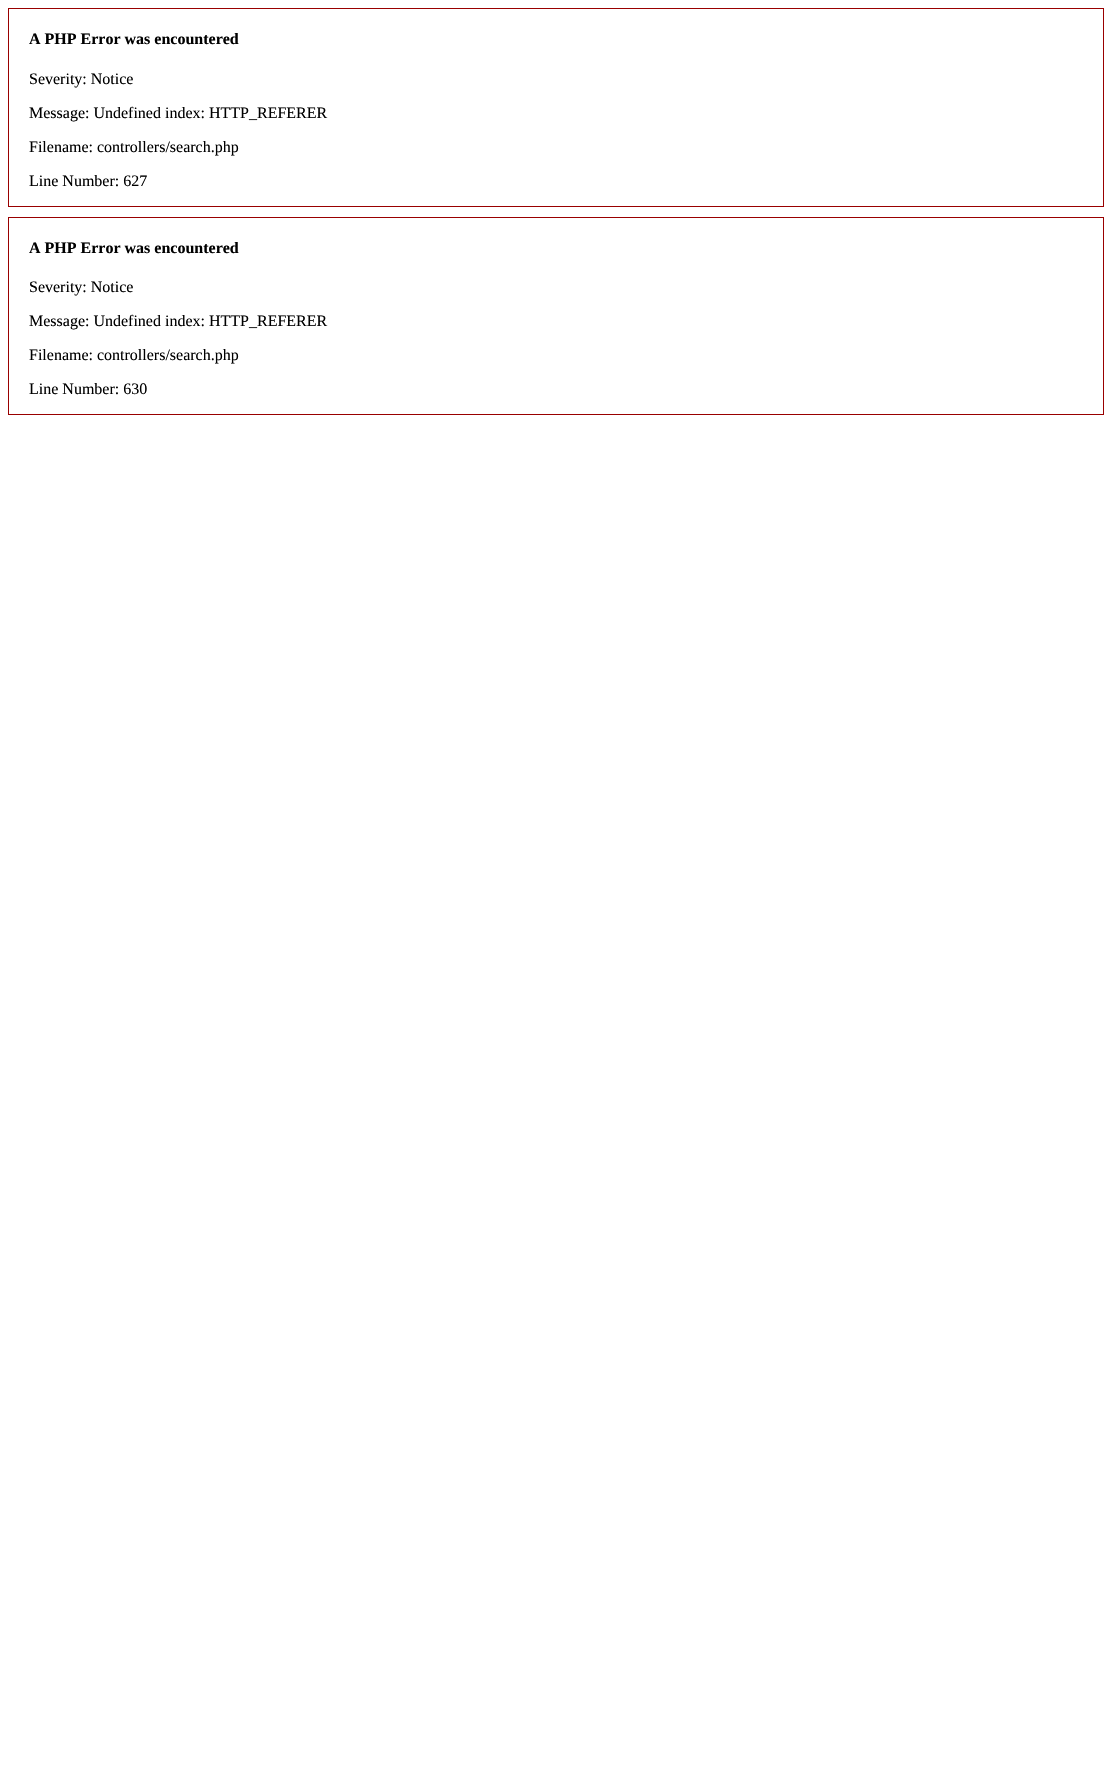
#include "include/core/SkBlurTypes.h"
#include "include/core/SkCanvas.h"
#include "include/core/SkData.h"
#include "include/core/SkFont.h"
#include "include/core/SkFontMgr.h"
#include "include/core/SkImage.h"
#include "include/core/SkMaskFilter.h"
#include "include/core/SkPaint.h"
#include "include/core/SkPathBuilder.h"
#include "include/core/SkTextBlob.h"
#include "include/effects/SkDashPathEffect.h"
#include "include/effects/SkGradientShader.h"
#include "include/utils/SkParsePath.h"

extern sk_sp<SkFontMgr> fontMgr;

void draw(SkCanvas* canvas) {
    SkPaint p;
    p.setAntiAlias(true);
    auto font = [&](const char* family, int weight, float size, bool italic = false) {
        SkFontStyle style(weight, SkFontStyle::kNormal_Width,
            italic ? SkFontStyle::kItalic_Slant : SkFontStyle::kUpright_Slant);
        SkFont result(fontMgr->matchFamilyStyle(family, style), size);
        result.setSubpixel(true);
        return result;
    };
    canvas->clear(0xFFFFFFFF);
    p.setStyle(SkPaint::kStroke_Style);
    p.setStrokeWidth(1);
    p.setColor(0xFF990000);
    canvas->drawRect(SkRect::MakeLTRB(8.5f, 8.5f, 1103.5f, 206.5f), p);
    auto font1 = font("Liberation Serif", 700, 16);
    p.setStyle(SkPaint::kFill_Style);
    p.setColor(0xFF000000);
    canvas->drawString("A PHP Error was encountered", 29, 44, font1, p);
    auto font2 = font("Liberation Serif", 400, 16);
    {
        const struct { const char* s; float x, y; } items[] = {
            {"Severity: Notice", 29, 84},
            {"Message: Undefined index: HTTP_REFERER", 29, 118},
            {"Filename: controllers/search.php", 29, 152},
            {"Line Number: 627", 29, 186},
        };
        for (auto [s, x, y] : items) {
            canvas->drawString(s, x, y, font2, p);
        }
    }
    p.setStyle(SkPaint::kStroke_Style);
    p.setColor(0xFF990000);
    canvas->drawRect(SkRect::MakeLTRB(8.5f, 217.5f, 1103.5f, 414.5f), p);
    p.setStyle(SkPaint::kFill_Style);
    p.setColor(0xFF000000);
    canvas->drawString("A PHP Error was encountered", 29, 253, font1, p);
    {
        const struct { const char* s; float x, y; } items[] = {
            {"Severity: Notice", 29, 292},
            {"Message: Undefined index: HTTP_REFERER", 29, 326},
            {"Filename: controllers/search.php", 29, 360},
            {"Line Number: 630", 29, 394},
        };
        for (auto [s, x, y] : items) {
            canvas->drawString(s, x, y, font2, p);
        }
    }
}
